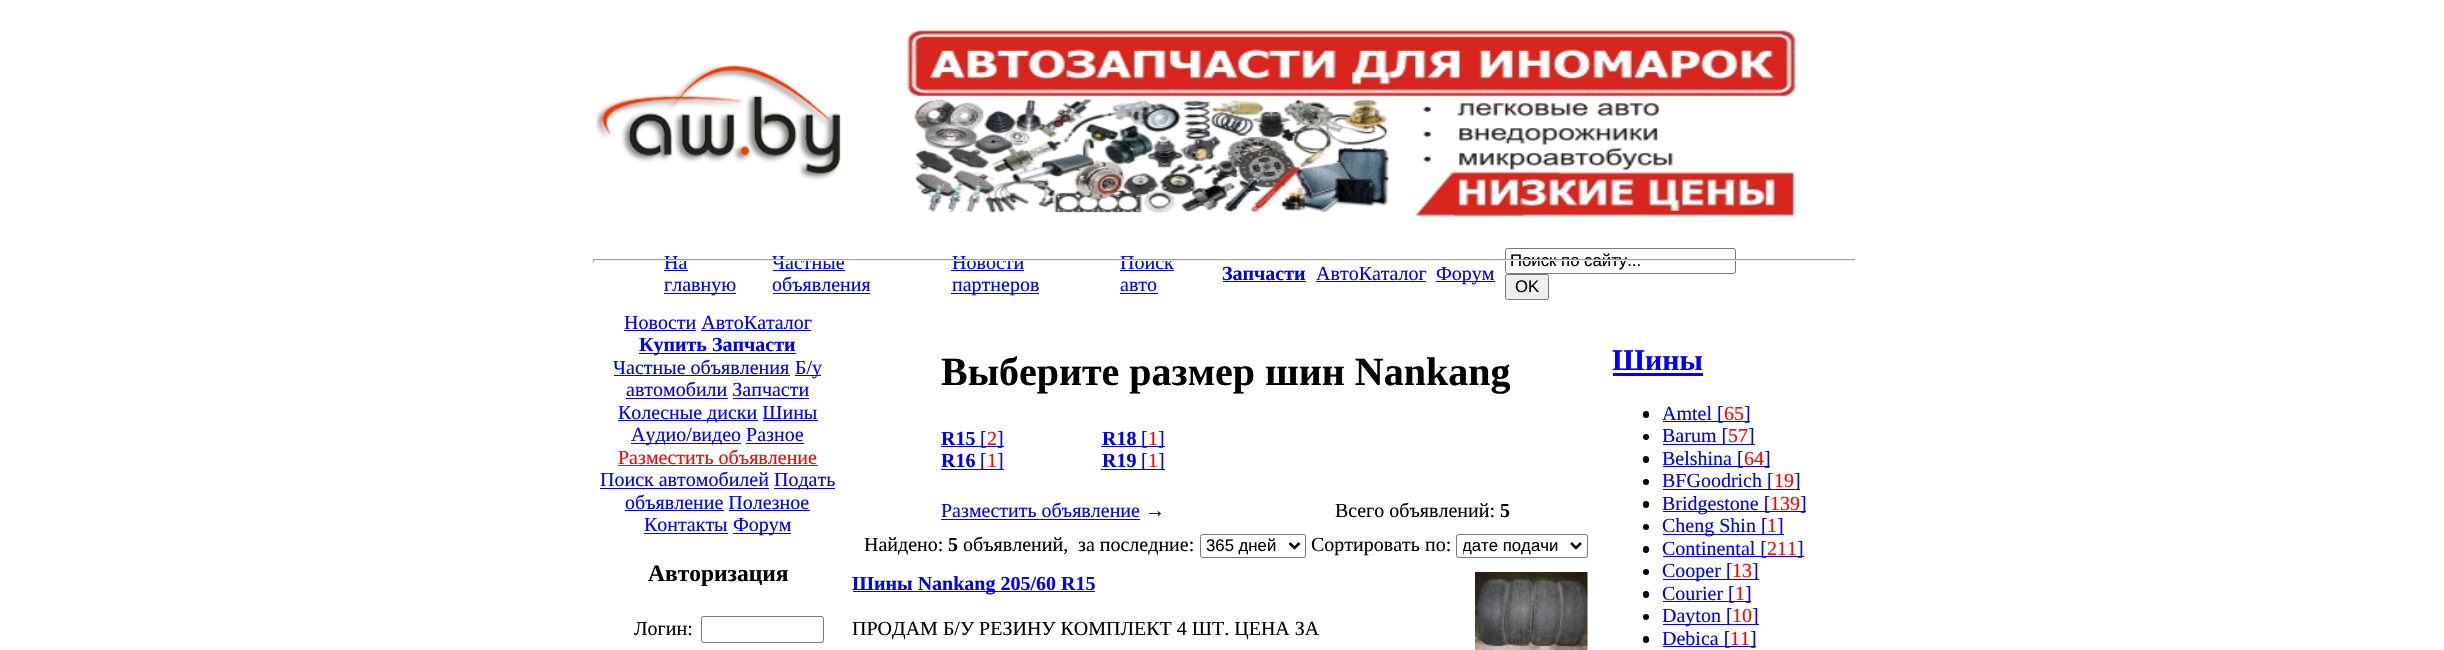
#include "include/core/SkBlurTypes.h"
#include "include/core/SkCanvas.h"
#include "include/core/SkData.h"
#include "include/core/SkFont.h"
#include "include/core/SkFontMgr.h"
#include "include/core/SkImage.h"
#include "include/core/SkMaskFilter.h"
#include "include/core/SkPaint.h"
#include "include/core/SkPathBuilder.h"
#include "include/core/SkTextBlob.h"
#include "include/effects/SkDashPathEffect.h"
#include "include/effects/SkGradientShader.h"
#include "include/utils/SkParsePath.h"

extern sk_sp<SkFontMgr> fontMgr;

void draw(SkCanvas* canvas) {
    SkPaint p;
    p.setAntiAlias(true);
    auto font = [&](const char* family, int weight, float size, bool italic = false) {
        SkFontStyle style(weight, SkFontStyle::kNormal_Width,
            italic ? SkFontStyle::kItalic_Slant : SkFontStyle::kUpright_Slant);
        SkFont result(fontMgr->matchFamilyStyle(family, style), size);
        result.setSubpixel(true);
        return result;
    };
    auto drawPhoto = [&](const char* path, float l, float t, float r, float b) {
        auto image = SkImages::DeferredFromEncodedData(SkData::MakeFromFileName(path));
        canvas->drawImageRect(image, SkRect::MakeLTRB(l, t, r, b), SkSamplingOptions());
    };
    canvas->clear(0xFFFFFFFF);
    drawPhoto("media/1.png", 596, 65, 841, 180);
    drawPhoto("media/2.png", 906, 29, 1797, 217);
    auto font1 = font("Liberation Serif", 400, 20);
    p.setColor(0xFF0000EE);
    canvas->drawString("На", 664, 269, font1, p);
    canvas->drawRect(SkRect::MakeLTRB(664, 270, 688, 271), p);
    canvas->drawRect(SkRect::MakeLTRB(664, 293, 736, 294), p);
    canvas->drawString("главную", 664, 291, font1, p);
    canvas->drawString("Частные", 772, 269, font1, p);
    canvas->drawRect(SkRect::MakeLTRB(773, 270, 845, 271), p);
    canvas->drawString("объявления", 772, 291, font1, p);
    canvas->drawRect(SkRect::MakeLTRB(773, 293, 870, 294), p);
    canvas->drawString("Новости", 952, 269, font1, p);
    canvas->drawRect(SkRect::MakeLTRB(951, 270, 1024, 271), p);
    canvas->drawRect(SkRect::MakeLTRB(951, 293, 1039, 294), p);
    canvas->drawString("партнеров", 952, 291, font1, p);
    canvas->drawString("Поиск", 1120, 269, font1, p);
    canvas->drawRect(SkRect::MakeLTRB(1120, 270, 1174, 271), p);
    canvas->drawString("авто", 1120, 291, font1, p);
    canvas->drawRect(SkRect::MakeLTRB(1120, 293, 1158, 294), p);
    auto font2 = font("Liberation Serif", 700, 20);
    canvas->drawString("Запчасти", 1222, 280, font2, p);
    canvas->drawRect(SkRect::MakeLTRB(1223, 281, 1306, 282), p);
    canvas->drawString("АвтоКаталог", 1316, 280, font1, p);
    canvas->drawRect(SkRect::MakeLTRB(1316, 281, 1426, 282), p);
    canvas->drawRect(SkRect::MakeLTRB(1436, 281, 1495, 282), p);
    canvas->drawString("Форум", 1436, 280, font1, p);
    p.setStyle(SkPaint::kStroke_Style);
    p.setStrokeWidth(1);
    p.setColor(0xFF767676);
    canvas->drawRoundRect(SkRect::MakeLTRB(1505.5f, 248.5f, 1735.5f, 273.5f), 2, 2, p);
    auto font3 = font("Liberation Sans", 400, 16.75f);
    p.setStyle(SkPaint::kFill_Style);
    p.setColor(0xFF000000);
    canvas->drawString("Поиск по сайту...", 1510, 266, font3, p);
    p.setColor(0xFFEFEFEF);
    canvas->drawRoundRect(SkRect::MakeLTRB(1505.5f, 274.5f, 1548.5f, 299.5f), 2, 2, p);
    p.setStyle(SkPaint::kStroke_Style);
    p.setColor(0xFF767676);
    canvas->drawRoundRect(SkRect::MakeLTRB(1505.5f, 274.5f, 1548.5f, 299.5f), 2, 2, p);
    p.setStyle(SkPaint::kFill_Style);
    p.setColor(0xFF000000);
    canvas->drawString("OK", 1515, 292, font3, p);
    {
        const struct { float l, t, r, b; SkColor color; } items[] = {
            {593, 259, 1856, 260, 0xFF9F9F9F},
            {1855, 259, 1856, 262, 0xFFEEEEEE},
            {593, 260, 1856, 261, 0xFFEEEEEE},
            {593, 259, 594, 262, 0xFF9F9F9F},
        };
        for (auto [l, t, r, b, color] : items) {
            p.setColor(color);
            canvas->drawRect(SkRect::MakeLTRB(l, t, r, b), p);
        }
    }
    p.setColor(0xFF0000EE);
    canvas->drawString("Новости АвтоКаталог", 624, 329, font1, p);
    {
        const struct { float l, t, r, b; SkColor color; } items[] = {
            {624, 330, 696, 331, 0xFF0000EE},
            {701, 330, 811, 331, 0xFF0000EE},
            {639, 353, 796, 354, 0xFF0000EE},
        };
        for (auto [l, t, r, b, color] : items) {
            p.setColor(color);
            canvas->drawRect(SkRect::MakeLTRB(l, t, r, b), p);
        }
    }
    canvas->drawString("Купить Запчасти", 639, 351, font2, p);
    canvas->drawString("Частные объявления", 613, 374, font1, p);
    canvas->drawRect(SkRect::MakeLTRB(614, 375, 790, 376), p);
    canvas->drawRect(SkRect::MakeLTRB(795, 375, 821, 376), p);
    canvas->drawString("Б/у", 795, 374, font1, p);
    canvas->drawString("автомобили Запчасти", 626, 396, font1, p);
    {
        const struct { float l, t, r, b; SkColor color; } items[] = {
            {626, 398, 728, 399, 0xFF0000EE},
            {733, 398, 809, 399, 0xFF0000EE},
            {618, 420, 758, 421, 0xFF0000EE},
        };
        for (auto [l, t, r, b, color] : items) {
            p.setColor(color);
            canvas->drawRect(SkRect::MakeLTRB(l, t, r, b), p);
        }
    }
    canvas->drawString("Колесные диски Шины", 618, 419, font1, p);
    canvas->drawRect(SkRect::MakeLTRB(763, 420, 818, 421), p);
    canvas->drawRect(SkRect::MakeLTRB(631, 443, 741, 444), p);
    canvas->drawString("Аудио/видео Разное", 631, 441, font1, p);
    canvas->drawRect(SkRect::MakeLTRB(746, 443, 804, 444), p);
    p.setColor(0xFFFF0000);
    canvas->drawString("Разместить объявление", 618, 464, font1, p);
    canvas->drawRect(SkRect::MakeLTRB(618, 465, 818, 466), p);
    p.setColor(0xFF0000EE);
    canvas->drawString("Поиск автомобилей", 600, 486, font1, p);
    canvas->drawRect(SkRect::MakeLTRB(600, 488, 769, 489), p);
    canvas->drawRect(SkRect::MakeLTRB(774, 488, 835, 489), p);
    canvas->drawString("Подать", 774, 486, font1, p);
    canvas->drawString("объявление Полезное", 625, 509, font1, p);
    canvas->drawRect(SkRect::MakeLTRB(625, 510, 724, 511), p);
    canvas->drawRect(SkRect::MakeLTRB(729, 510, 810, 511), p);
    canvas->drawString("Контакты", 644, 531, font1, p);
    canvas->drawRect(SkRect::MakeLTRB(644, 533, 728, 534), p);
    canvas->drawRect(SkRect::MakeLTRB(733, 533, 791, 534), p);
    canvas->drawString("Форум", 733, 531, font1, p);
    auto font4 = font("Liberation Serif", 700, 23.5f);
    p.setColor(0xFF000000);
    canvas->drawString("Авторизация", 648, 581, font4, p);
    canvas->drawString("Логин:", 634, 635, font1, p);
    p.setStyle(SkPaint::kStroke_Style);
    p.setColor(0xFF767676);
    canvas->drawRoundRect(SkRect::MakeLTRB(701.5f, 616.5f, 823.5f, 642.5f), 2, 2, p);
    auto font5 = font("Liberation Serif", 700, 40);
    p.setStyle(SkPaint::kFill_Style);
    p.setColor(0xFF000000);
    canvas->drawString("Выберите размер шин Nankang", 941, 385, font5, p);
    p.setColor(0xFF0000EE);
    canvas->drawString("R15", 941, 445, font2, p);
    canvas->drawRect(SkRect::MakeLTRB(941, 446, 1004, 447), p);
    canvas->drawString("[", 980, 445, font1, p);
    p.setColor(0xFFFF0000);
    canvas->drawString("2", 987, 445, font1, p);
    p.setColor(0xFF0000EE);
    canvas->drawString("]", 997, 445, font1, p);
    canvas->drawString("R16", 941, 467, font2, p);
    canvas->drawRect(SkRect::MakeLTRB(941, 469, 1004, 470), p);
    canvas->drawString("[", 980, 467, font1, p);
    p.setColor(0xFFFF0000);
    canvas->drawString("1", 987, 467, font1, p);
    p.setColor(0xFF0000EE);
    canvas->drawString("]", 997, 467, font1, p);
    canvas->drawString("R18", 1102, 445, font2, p);
    canvas->drawRect(SkRect::MakeLTRB(1101, 446, 1165, 447), p);
    canvas->drawString("[", 1141, 445, font1, p);
    p.setColor(0xFFFF0000);
    canvas->drawString("1", 1148, 445, font1, p);
    p.setColor(0xFF0000EE);
    canvas->drawString("]", 1158, 445, font1, p);
    canvas->drawString("R19", 1102, 467, font2, p);
    canvas->drawRect(SkRect::MakeLTRB(1101, 469, 1165, 470), p);
    canvas->drawString("[", 1141, 467, font1, p);
    p.setColor(0xFFFF0000);
    canvas->drawString("1", 1148, 467, font1, p);
    p.setColor(0xFF0000EE);
    canvas->drawString("]", 1158, 467, font1, p);
    canvas->drawString("Разместить объявление", 941, 517, font1, p);
    canvas->drawRect(SkRect::MakeLTRB(941, 519, 1140, 520), p);
    p.setColor(0xFF000000);
    canvas->drawString("→", 1145, 517, font1, p);
    canvas->drawString("Всего объявлений:", 1335, 517, font1, p);
    canvas->drawString("5", 1500, 517, font2, p);
    canvas->drawString("Найдено:", 864, 551, font1, p);
    canvas->drawString("5", 948, 551, font2, p);
    canvas->drawString("объявлений,", 963, 551, font1, p);
    canvas->drawString("за последние:", 1078, 551, font1, p);
    p.setStyle(SkPaint::kStroke_Style);
    p.setColor(0xFF767676);
    canvas->drawRoundRect(SkRect::MakeLTRB(1200.5f, 534.5f, 1305.5f, 557.5f), 2, 2, p);
    p.setStrokeWidth(2.5f);
    p.setColor(0xFF000000);
    canvas->drawPath(SkPathBuilder().moveTo(1289.5f, 543).lineTo(1294.5f, 548).lineTo(1299.5f, 543).detach(), p);
    p.setStyle(SkPaint::kFill_Style);
    canvas->drawString("365 дней", 1206, 551, font3, p);
    canvas->drawString("Сортировать по:", 1311, 551, font1, p);
    p.setStyle(SkPaint::kStroke_Style);
    p.setStrokeWidth(1);
    p.setColor(0xFF767676);
    canvas->drawRoundRect(SkRect::MakeLTRB(1456.5f, 534.5f, 1587.5f, 557.5f), 2, 2, p);
    p.setStrokeWidth(2.5f);
    p.setColor(0xFF000000);
    canvas->drawPath(SkPathBuilder().moveTo(1571, 543).lineTo(1576, 548).lineTo(1581, 543).detach(), p);
    canvas->save();
    canvas->clipRect(SkRect::MakeLTRB(1463, 535, 1566, 556));
    p.setStyle(SkPaint::kFill_Style);
    canvas->drawString("дате подачи", 1462, 551, font3, p);
    canvas->restore();
    p.setColor(0xFF0000EE);
    canvas->drawRect(SkRect::MakeLTRB(853, 591, 1095, 592), p);
    canvas->drawString("Шины Nankang 205/60 R15", 852, 590, font2, p);
    p.setColor(0xFF000000);
    canvas->drawString("ПРОДАМ Б/У РЕЗИНУ КОМПЛЕКТ 4 ШТ. ЦЕНА ЗА", 852, 635, font1, p);
    drawPhoto("media/3.png", 1475, 572, 1588, 650);
    auto font6 = font("Liberation Serif", 700, 30);
    p.setColor(0xFF0000EE);
    canvas->drawString("Шины", 1612, 370, font6, p);
    canvas->drawRect(SkRect::MakeLTRB(1613, 373, 1703, 376), p);
    p.setColor(0xFF000000);
    canvas->drawRoundRect(SkRect::MakeLTRB(1643, 411, 1649, 418), 3, 3, p);
    p.setColor(0xFF0000EE);
    canvas->drawRect(SkRect::MakeLTRB(1663, 421, 1750, 422), p);
    canvas->drawString("Amtel [", 1662, 420, font1, p);
    p.setColor(0xFFFF0000);
    canvas->drawString("65", 1724, 420, font1, p);
    p.setColor(0xFF0000EE);
    canvas->drawString("]", 1744, 420, font1, p);
    p.setColor(0xFF000000);
    canvas->drawCircle(1646, 437, 3, p);
    p.setColor(0xFF0000EE);
    canvas->drawRect(SkRect::MakeLTRB(1663, 444, 1755, 445), p);
    canvas->drawString("Barum [", 1662, 442, font1, p);
    p.setColor(0xFFFF0000);
    canvas->drawString("57", 1728, 442, font1, p);
    p.setColor(0xFF0000EE);
    canvas->drawString("]", 1748, 442, font1, p);
    p.setColor(0xFF000000);
    canvas->drawRoundRect(SkRect::MakeLTRB(1643, 456, 1649, 463), 3, 3, p);
    p.setColor(0xFF0000EE);
    canvas->drawRect(SkRect::MakeLTRB(1663, 466, 1770, 467), p);
    canvas->drawString("Belshina [", 1662, 465, font1, p);
    p.setColor(0xFFFF0000);
    canvas->drawString("64", 1744, 465, font1, p);
    p.setColor(0xFF0000EE);
    canvas->drawString("]", 1764, 465, font1, p);
    p.setColor(0xFF000000);
    canvas->drawCircle(1646, 482, 3, p);
    p.setColor(0xFF0000EE);
    canvas->drawRect(SkRect::MakeLTRB(1663, 489, 1800, 490), p);
    canvas->drawString("BFGoodrich [", 1662, 487, font1, p);
    p.setColor(0xFFFF0000);
    canvas->drawString("19", 1774, 487, font1, p);
    p.setColor(0xFF0000EE);
    canvas->drawString("]", 1794, 487, font1, p);
    p.setColor(0xFF000000);
    canvas->drawRoundRect(SkRect::MakeLTRB(1643, 501, 1649, 508), 3, 3, p);
    p.setColor(0xFF0000EE);
    canvas->drawRect(SkRect::MakeLTRB(1663, 511, 1806, 512), p);
    canvas->drawString("Bridgestone [", 1662, 510, font1, p);
    p.setColor(0xFFFF0000);
    canvas->drawString("139", 1770, 510, font1, p);
    p.setColor(0xFF0000EE);
    canvas->drawString("]", 1800, 510, font1, p);
    p.setColor(0xFF000000);
    canvas->drawCircle(1646, 527, 3, p);
    p.setColor(0xFF0000EE);
    canvas->drawRect(SkRect::MakeLTRB(1663, 534, 1784, 535), p);
    canvas->drawString("Cheng Shin [", 1662, 532, font1, p);
    p.setColor(0xFFFF0000);
    canvas->drawString("1", 1767, 532, font1, p);
    p.setColor(0xFF0000EE);
    canvas->drawString("]", 1777, 532, font1, p);
    p.setColor(0xFF000000);
    canvas->drawRoundRect(SkRect::MakeLTRB(1643, 546, 1649, 553), 3, 3, p);
    p.setColor(0xFF0000EE);
    canvas->drawRect(SkRect::MakeLTRB(1663, 556, 1766, 557), p);
    canvas->drawString("Continental [", 1662, 555, font1, p);
    canvas->drawRect(SkRect::MakeLTRB(1766, 556, 1804, 557), p);
    p.setColor(0xFFFF0000);
    canvas->drawString("211", 1767, 555, font1, p);
    p.setColor(0xFF0000EE);
    canvas->drawString("]", 1797, 555, font1, p);
    p.setColor(0xFF000000);
    canvas->drawCircle(1646, 572, 3, p);
    p.setColor(0xFF0000EE);
    canvas->drawRect(SkRect::MakeLTRB(1663, 579, 1759, 580), p);
    canvas->drawString("Cooper [", 1662, 577, font1, p);
    p.setColor(0xFFFF0000);
    canvas->drawString("13", 1732, 577, font1, p);
    p.setColor(0xFF0000EE);
    canvas->drawString("]", 1752, 577, font1, p);
    p.setColor(0xFF000000);
    canvas->drawRoundRect(SkRect::MakeLTRB(1643, 591, 1649, 598), 3, 3, p);
    p.setColor(0xFF0000EE);
    canvas->drawRect(SkRect::MakeLTRB(1663, 601, 1751, 602), p);
    canvas->drawString("Courier [", 1662, 600, font1, p);
    p.setColor(0xFFFF0000);
    canvas->drawString("1", 1735, 600, font1, p);
    p.setColor(0xFF0000EE);
    canvas->drawString("]", 1745, 600, font1, p);
    p.setColor(0xFF000000);
    canvas->drawCircle(1646, 617, 3, p);
    p.setColor(0xFF0000EE);
    canvas->drawRect(SkRect::MakeLTRB(1663, 624, 1759, 625), p);
    canvas->drawString("Dayton [", 1662, 622, font1, p);
    p.setColor(0xFFFF0000);
    canvas->drawString("10", 1732, 622, font1, p);
    p.setColor(0xFF0000EE);
    canvas->drawString("]", 1752, 622, font1, p);
    p.setColor(0xFF000000);
    canvas->drawRoundRect(SkRect::MakeLTRB(1643, 636, 1649, 643), 3, 3, p);
    p.setColor(0xFF0000EE);
    canvas->drawRect(SkRect::MakeLTRB(1663, 646, 1756, 647), p);
    canvas->drawString("Debica [", 1662, 645, font1, p);
    p.setColor(0xFFFF0000);
    canvas->drawString("11", 1730, 645, font1, p);
    p.setColor(0xFF0000EE);
    canvas->drawString("]", 1750, 645, font1, p);
}
